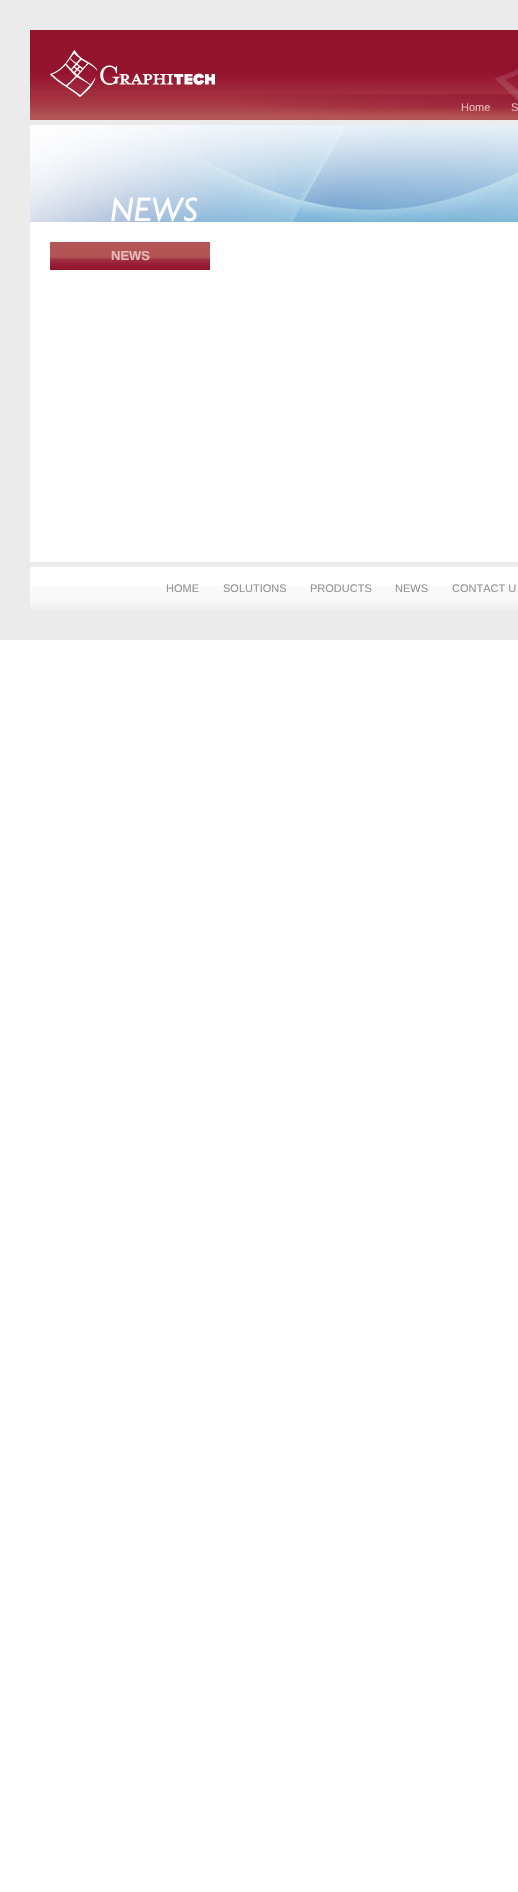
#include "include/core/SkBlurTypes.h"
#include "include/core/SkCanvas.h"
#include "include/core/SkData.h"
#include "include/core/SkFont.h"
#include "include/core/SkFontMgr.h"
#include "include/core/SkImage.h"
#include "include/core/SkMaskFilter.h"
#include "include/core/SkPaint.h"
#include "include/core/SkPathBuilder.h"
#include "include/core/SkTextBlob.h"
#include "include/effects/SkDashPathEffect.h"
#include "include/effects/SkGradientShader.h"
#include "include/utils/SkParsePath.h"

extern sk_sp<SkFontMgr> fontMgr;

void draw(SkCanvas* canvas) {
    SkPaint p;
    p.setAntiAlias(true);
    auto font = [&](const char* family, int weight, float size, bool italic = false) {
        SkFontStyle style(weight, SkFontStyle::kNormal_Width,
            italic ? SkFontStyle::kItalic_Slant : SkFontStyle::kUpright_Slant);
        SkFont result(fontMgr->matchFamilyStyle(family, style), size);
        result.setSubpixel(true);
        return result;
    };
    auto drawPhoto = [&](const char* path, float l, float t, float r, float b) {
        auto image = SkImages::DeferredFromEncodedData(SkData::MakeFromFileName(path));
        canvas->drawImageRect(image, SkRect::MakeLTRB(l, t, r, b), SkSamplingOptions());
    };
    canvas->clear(0xFFFFFFFF);
    p.setColor(0xFFEBEBEB);
    canvas->drawRect(SkRect::MakeLTRB(0, 0, 518, 640), p);
    drawPhoto("media/1.png", 30, 30, 518, 120);
    drawPhoto("media/2.png", 50, 50, 215, 97);
    auto font1 = font("Liberation Sans", 400, 11);
    p.setColor(0xFFE5B9B9);
    canvas->drawString("Home", 461, 111, font1, p);
    canvas->drawString("S", 511, 111, font1, p);
    drawPhoto("media/3.png", 30, 125, 518, 222);
    auto font2 = font("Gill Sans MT", 400, 34, true);
    p.setColor(0xFFFFFFFF);
    canvas->drawString("NEWS", 110, 221, font2, p);
    canvas->drawRect(SkRect::MakeLTRB(30, 222, 518, 562), p);
    drawPhoto("media/4.png", 50, 242, 210, 270);
    auto font3 = font("Liberation Sans", 700, 13);
    p.setColor(0xFFE5B9B9);
    canvas->drawString("NEWS", 111, 260, font3, p);
    p.setColor(0xFFFFFFFF);
    canvas->drawRect(SkRect::MakeLTRB(30, 567, 518, 586), p);
    drawPhoto("media/5.png", 30, 586, 518, 610);
    p.setColor(0xFF929292);
    {
        const struct { const char* s; float x, y; } items[] = {
            {"HOME", 166, 592},
            {"SOLUTIONS", 223, 592},
            {"PRODUCTS", 310, 592},
            {"NEWS", 395, 592},
            {"CONTACT U", 452, 592},
        };
        for (auto [s, x, y] : items) {
            canvas->drawString(s, x, y, font1, p);
        }
    }
}
